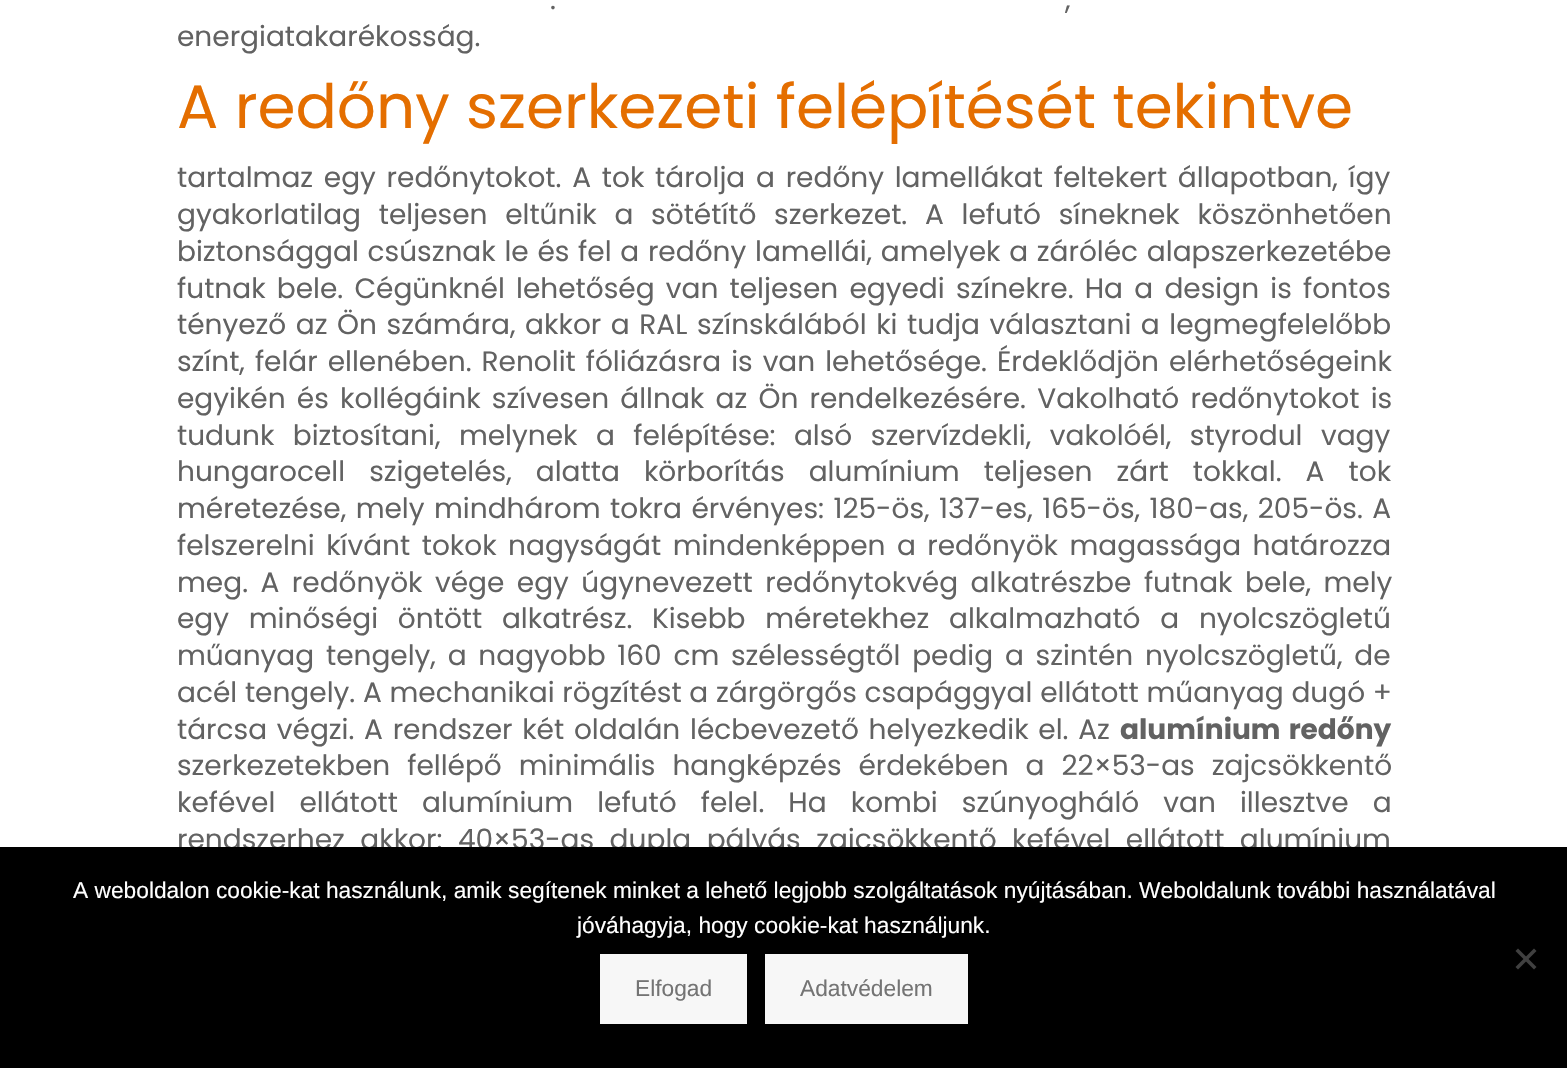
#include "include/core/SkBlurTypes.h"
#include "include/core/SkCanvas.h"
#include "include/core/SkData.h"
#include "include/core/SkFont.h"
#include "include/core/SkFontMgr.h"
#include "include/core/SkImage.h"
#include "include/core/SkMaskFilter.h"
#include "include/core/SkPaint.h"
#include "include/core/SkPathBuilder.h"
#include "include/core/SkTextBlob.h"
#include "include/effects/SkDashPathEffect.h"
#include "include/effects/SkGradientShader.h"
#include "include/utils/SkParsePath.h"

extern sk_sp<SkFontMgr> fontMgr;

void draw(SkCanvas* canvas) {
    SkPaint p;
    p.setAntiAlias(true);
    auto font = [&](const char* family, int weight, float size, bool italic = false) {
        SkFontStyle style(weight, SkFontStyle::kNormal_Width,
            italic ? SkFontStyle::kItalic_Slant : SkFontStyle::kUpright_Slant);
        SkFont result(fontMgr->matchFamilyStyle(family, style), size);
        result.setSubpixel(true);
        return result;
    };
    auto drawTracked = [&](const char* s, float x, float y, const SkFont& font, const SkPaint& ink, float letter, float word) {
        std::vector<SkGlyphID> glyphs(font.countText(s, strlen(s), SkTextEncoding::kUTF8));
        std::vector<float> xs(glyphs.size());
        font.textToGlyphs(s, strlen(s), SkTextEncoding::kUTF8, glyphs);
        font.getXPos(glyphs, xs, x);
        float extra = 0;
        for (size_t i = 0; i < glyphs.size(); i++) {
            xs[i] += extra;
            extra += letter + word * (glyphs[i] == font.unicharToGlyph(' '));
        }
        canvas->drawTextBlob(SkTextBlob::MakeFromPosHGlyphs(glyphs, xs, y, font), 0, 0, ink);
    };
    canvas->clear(0xFFFFFFFF);
    auto font1 = font("Poppins", 400, 28);
    p.setColor(0xFF626262);
    drawTracked(".", 550, 9, font1, p, 0, 11);
    drawTracked(",", 1065, 9, font1, p, 0, 11);
    canvas->drawString("energiatakarékosság.", 177, 46, font1, p);
    auto font2 = font("Poppins", 400, 61.25f);
    p.setColor(0xFFE46E00);
    canvas->drawString("A redőny szerkezeti felépítését tekintve", 177, 128, font2, p);
    p.setColor(0xFF626262);
    drawTracked("tartalmaz egy redőnytokot. A tok tárolja a redőny lamellákat feltekert állapotban, így", 177, 187, font1, p, 0, 3.25f);
    drawTracked("gyakorlatilag teljesen eltűnik a sötétítő szerkezet. A lefutó síneknek köszönhetően", 177, 224, font1, p, 0, 10.25f);
    drawTracked("biztonsággal csúsznak le és fel a redőny lamellái, amelyek a záróléc alapszerkezetébe", 177, 261, font1, p, 0, 1.25f);
    drawTracked("futnak bele. Cégünknél lehetőség van teljesen egyedi színekre. Ha a design is fontos", 177, 298, font1, p, 0, 3.75f);
    drawTracked("tényező az Ön számára, akkor a RAL színskálából ki tudja választani a legmegfelelőbb", 177, 334, font1, p, 0, 2.1f);
    drawTracked("színt, felár ellenében. Renolit fóliázásra is van lehetősége. Érdeklődjön elérhetőségeink", 177, 371, font1, p, 0, 2.5f);
    drawTracked("egyikén és kollégáink szívesen állnak az Ön rendelkezésére. Vakolható redőnytokot is", 177, 408, font1, p, 0, 3.75f);
    drawTracked("tudunk biztosítani, melynek a felépítése: alsó szervízdekli, vakolóél, styrodul vagy", 177, 445, font1, p, 0, 11);
    drawTracked("hungarocell szigetelés, alatta körborítás alumínium teljesen zárt tokkal. A tok", 177, 481, font1, p, 0, 16.6f);
    drawTracked("méretezése, mely mindhárom tokra érvényes: 125-ös, 137-es, 165-ös, 180-as, 205-ös. A", 177, 518, font1, p, 0, 2);
    drawTracked("felszerelni kívánt tokok nagyságát mindenképpen a redőnyök magassága határozza", 177, 555, font1, p, 0, 4);
    drawTracked("meg. A redőnyök vége egy úgynevezett redőnytokvég alkatrészbe futnak bele, mely", 177, 592, font1, p, 0, 5);
    drawTracked("egy minőségi öntött alkatrész. Kisebb méretekhez alkalmazható a nyolcszögletű", 177, 628, font1, p, 0, 12.25f);
    drawTracked("műanyag tengely, a nagyobb 160 cm szélességtől pedig a szintén nyolcszögletű, de", 177, 665, font1, p, 0, 4.25f);
    drawTracked("acél tengely. A mechanikai rögzítést a zárgörgős csapággyal ellátott műanyag dugó +", 177, 702, font1, p, 0, 0.25f);
    drawTracked("tárcsa végzi. A rendszer két oldalán lécbevezető helyezkedik el. Az", 177, 739, font1, p, 0, 2.25f);
    auto font3 = font("Poppins", 700, 28);
    drawTracked("alumínium redőny", 1120, 739, font3, p, 0, 2.25f);
    drawTracked("szerkezetekben fellépő minimális hangképzés érdekében a 22×53-as zajcsökkentő", 177, 775, font1, p, 0, 9.5f);
    drawTracked("kefével ellátott alumínium lefutó felel. Ha kombi szúnyogháló van illesztve a", 177, 812, font1, p, 0, 16.6f);
    drawTracked("rendszerhez akkor: 40×53-as dupla pályás zajcsökkentő kefével ellátott alumínium", 177, 849, font1, p, 0, 8);
    p.setColor(0xFF000000);
    canvas->drawRect(SkRect::MakeLTRB(0, 847, 1567, 1068), p);
    auto font4 = font("Liberation Sans", 400, 22.75f);
    p.setColor(0xFFFFFFFF);
    canvas->drawString("A weboldalon cookie-kat használunk, amik segítenek minket a lehető legjobb szolgáltatások nyújtásában. Weboldalunk további használatával", 73, 898, font4, p);
    canvas->drawString("jóváhagyja, hogy cookie-kat használjunk.", 577, 933, font4, p);
    p.setColor(0xFF404040);
    canvas->drawPath(SkPathBuilder().moveTo(1534, 948.5f).lineTo(1536.5f, 951).lineTo(1518, 969.5f).lineTo(1515.5f, 967).close().detach(), p);
    canvas->drawPath(SkPathBuilder().moveTo(1515.5f, 951).lineTo(1518, 948.5f).lineTo(1536.5f, 967).lineTo(1534, 969.5f).close().detach(), p);
    p.setColor(0xFFF7F7F7);
    canvas->drawRect(SkRect::MakeLTRB(600, 954, 747, 1024), p);
    p.setColor(0xFF747474);
    canvas->drawString("Elfogad", 635, 996, font4, p);
    p.setColor(0xFFF7F7F7);
    canvas->drawRect(SkRect::MakeLTRB(765, 954, 968, 1024), p);
    p.setColor(0xFF747474);
    canvas->drawString("Adatvédelem", 800, 996, font4, p);
}
